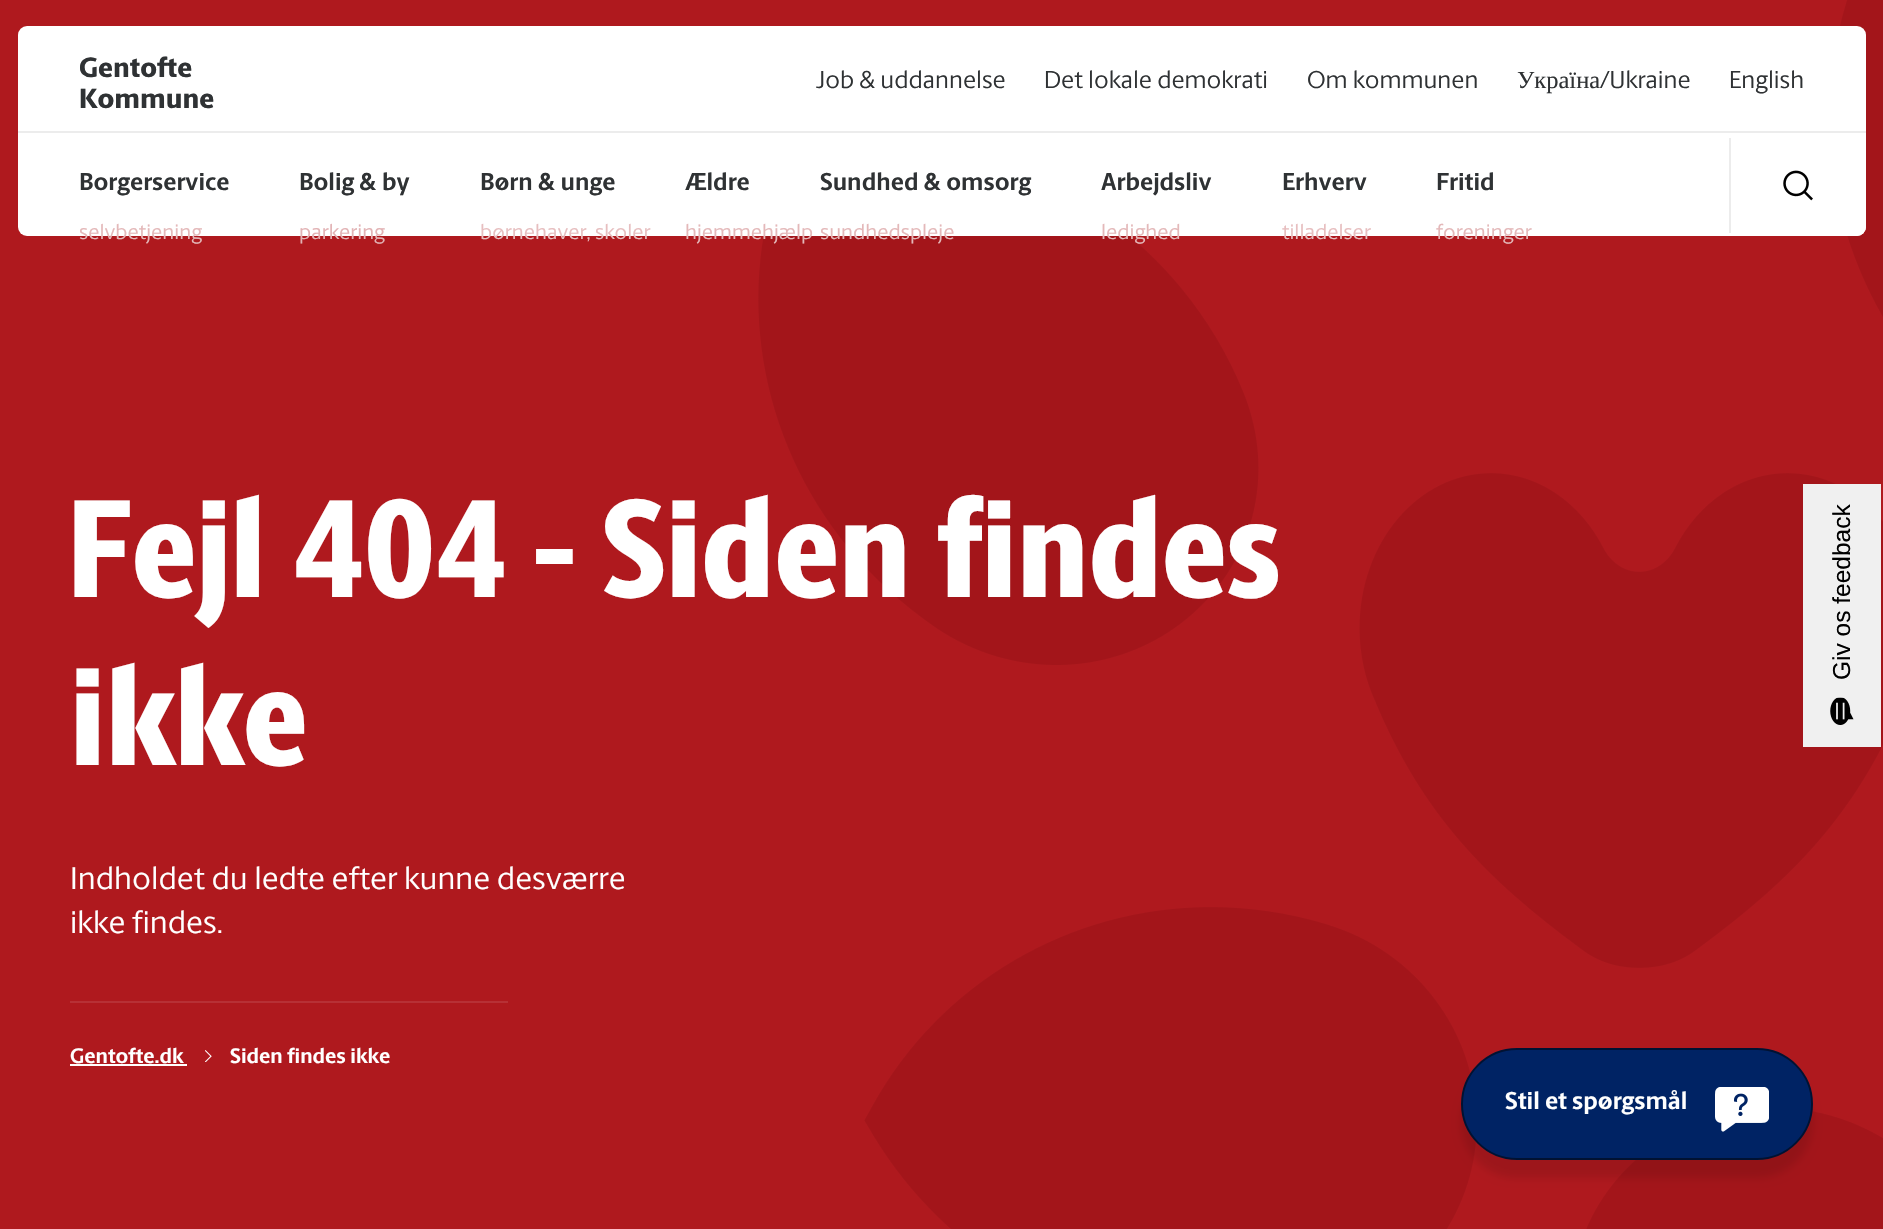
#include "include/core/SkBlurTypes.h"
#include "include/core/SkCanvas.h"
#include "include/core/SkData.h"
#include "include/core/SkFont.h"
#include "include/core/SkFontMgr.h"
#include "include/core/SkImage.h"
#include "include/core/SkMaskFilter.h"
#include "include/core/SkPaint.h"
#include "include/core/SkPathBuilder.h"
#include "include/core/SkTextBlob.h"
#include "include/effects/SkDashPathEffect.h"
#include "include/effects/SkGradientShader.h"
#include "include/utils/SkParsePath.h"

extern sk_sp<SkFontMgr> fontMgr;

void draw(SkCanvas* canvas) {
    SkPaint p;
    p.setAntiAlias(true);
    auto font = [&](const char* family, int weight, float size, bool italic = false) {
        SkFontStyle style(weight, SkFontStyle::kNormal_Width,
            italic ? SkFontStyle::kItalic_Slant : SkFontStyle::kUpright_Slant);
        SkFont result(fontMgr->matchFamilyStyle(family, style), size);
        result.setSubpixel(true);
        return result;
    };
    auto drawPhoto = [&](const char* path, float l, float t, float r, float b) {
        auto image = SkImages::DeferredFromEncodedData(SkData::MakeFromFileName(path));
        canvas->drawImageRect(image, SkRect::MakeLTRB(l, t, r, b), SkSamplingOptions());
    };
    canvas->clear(0xFFAF191E);
    drawPhoto("media/3.png", 758, 0, 1883, 1229);
    p.setColor(0xFFFFFFFF);
    canvas->drawRoundRect(SkRect::MakeLTRB(18, 26, 1866, 236), 9, 9, p);
    p.setColor(0xFFECECEC);
    canvas->drawRect(SkRect::MakeLTRB(18, 131, 1866, 133), p);
    auto font1 = font("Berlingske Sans", 800, 28);
    p.setColor(0xFF2F3234);
    canvas->drawString("Gentofte", 79, 77, font1, p);
    canvas->drawString("Kommune", 79, 108, font1, p);
    auto font2 = font("Berlingske Sans", 400, 24.5f);
    {
        const struct { const char* s; float x, y; } items[] = {
            {"Job & uddannelse", 816, 88},
            {"Det lokale demokrati", 1044, 88},
            {"Om kommunen", 1307, 88},
        };
        for (auto [s, x, y] : items) {
            canvas->drawString(s, x, y, font2, p);
        }
    }
    auto font3 = font("Liberation Serif", 400, 24.5f);
    canvas->drawString("Україна", 1517, 88, font3, p);
    canvas->drawString("/Ukraine", 1600, 88, font2, p);
    canvas->drawString("English", 1729, 88, font2, p);
    auto font4 = font("Berlingske Sans", 700, 24.5f);
    canvas->drawString("Borgerservice", 79, 190, font4, p);
    auto font5 = font("Berlingske Sans", 400, 21);
    p.setColor(0xFFE4B8B9);
    canvas->drawString("selvbetjening", 79, 239, font5, p);
    p.setColor(0xFF2F3234);
    canvas->drawString("Bolig & by", 299, 190, font4, p);
    p.setColor(0xFFE2B2B4);
    canvas->drawString("parkering", 299, 239, font5, p);
    p.setColor(0xFF2F3234);
    canvas->drawString("Børn & unge", 480, 190, font4, p);
    p.setColor(0xFFE7BEBF);
    canvas->drawString("børnehaver, skoler", 480, 239, font5, p);
    p.setColor(0xFF2F3234);
    canvas->drawString("Ældre", 685, 190, font4, p);
    p.setColor(0xFFE4B8B9);
    canvas->drawString("hjemmehjælp", 685, 239, font5, p);
    p.setColor(0xFF2F3234);
    canvas->drawString("Sundhed & omsorg", 820, 190, font4, p);
    canvas->save();
    canvas->clipRect(SkRect::MakeLTRB(821, 200, 1101, 247));
    p.setColor(0xFFE4B8B9);
    canvas->drawString("sundhedspleje", 820, 239, font5, p);
    canvas->restore();
    p.setColor(0xFF2F3234);
    canvas->drawString("Arbejdsliv", 1101, 190, font4, p);
    p.setColor(0xFFE4B8B9);
    canvas->drawString("ledighed", 1101, 239, font5, p);
    p.setColor(0xFF2F3234);
    canvas->drawString("Erhverv", 1282, 190, font4, p);
    p.setColor(0xFFE7BEBF);
    canvas->drawString("tilladelser", 1282, 239, font5, p);
    p.setColor(0xFF2F3234);
    canvas->drawString("Fritid", 1436, 190, font4, p);
    p.setColor(0xFFE4B8B9);
    canvas->drawString("foreninger", 1436, 239, font5, p);
    p.setColor(0xFFFFFFFF);
    canvas->drawRoundRect(SkRect::MakeLTRB(1729, 133, 1866, 236), 9, 9, p);
    p.setColor(0xFFECECEC);
    canvas->drawRect(SkRect::MakeLTRB(1729, 138, 1731, 233), p);
    drawPhoto("media/1.png", 1783, 170, 1813, 201);
    auto font6 = font("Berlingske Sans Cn", 800, 140);
    p.setColor(0xFFFFFFFF);
    canvas->drawString("Fejl 404 - Siden findes", 67, 597, font6, p);
    canvas->drawString("ikke", 70, 765, font6, p);
    auto font7 = font("Berlingske Sans", 400, 31.5f);
    canvas->drawString("Indholdet du ledte efter kunne desværre", 70, 889, font7, p);
    canvas->drawString("ikke findes.", 70, 933, font7, p);
    p.setColor(0xFFB73035);
    canvas->drawRect(SkRect::MakeLTRB(70, 1001, 508, 1003), p);
    auto font8 = font("Berlingske Sans", 700, 21);
    p.setColor(0xFFFFFFFF);
    canvas->drawString("Gentofte.dk", 70, 1063, font8, p);
    canvas->drawRect(SkRect::MakeLTRB(70, 1064, 187, 1066), p);
    drawPhoto("media/2.png", 205, 1050, 212, 1062);
    canvas->drawString("Siden findes ikke", 230, 1063, font8, p);
    p.setColor(0xFFF0F0F0);
    canvas->drawRect(SkRect::MakeLTRB(1803, 484, 1881, 747), p);
    auto font9 = font("Liberation Sans", 400, 24.5f);
    p.setColor(0xFF000000);
    canvas->save();
    canvas->rotate(-90, 1850, 680);
    canvas->drawString("Giv os feedback", 1850, 680, font9, p);
    canvas->restore();
    drawPhoto("media/4.png", 1830, 697, 1854, 725);
    p.setColor(0x1A000000);
    p.setMaskFilter(SkMaskFilter::MakeBlur(kNormal_SkBlurStyle, 4.5f));
    canvas->drawRoundRect(SkRect::MakeLTRB(1461, 1066, 1813, 1178), 56, 56, p);
    p.setMaskFilter(nullptr);
    p.setColor(0xFF002364);
    canvas->drawRoundRect(SkRect::MakeLTRB(1462, 1049, 1812, 1159), 55, 55, p);
    p.setStyle(SkPaint::kStroke_Style);
    p.setStrokeWidth(2);
    p.setColor(0xFF001233);
    canvas->drawRoundRect(SkRect::MakeLTRB(1462, 1049, 1812, 1159), 55, 55, p);
    p.setStyle(SkPaint::kFill_Style);
    p.setColor(0xFFFFFFFF);
    canvas->drawString("Stil et spørgsmål", 1505, 1109, font4, p);
    drawPhoto("media/5.png", 1715, 1087, 1769, 1132);
}
